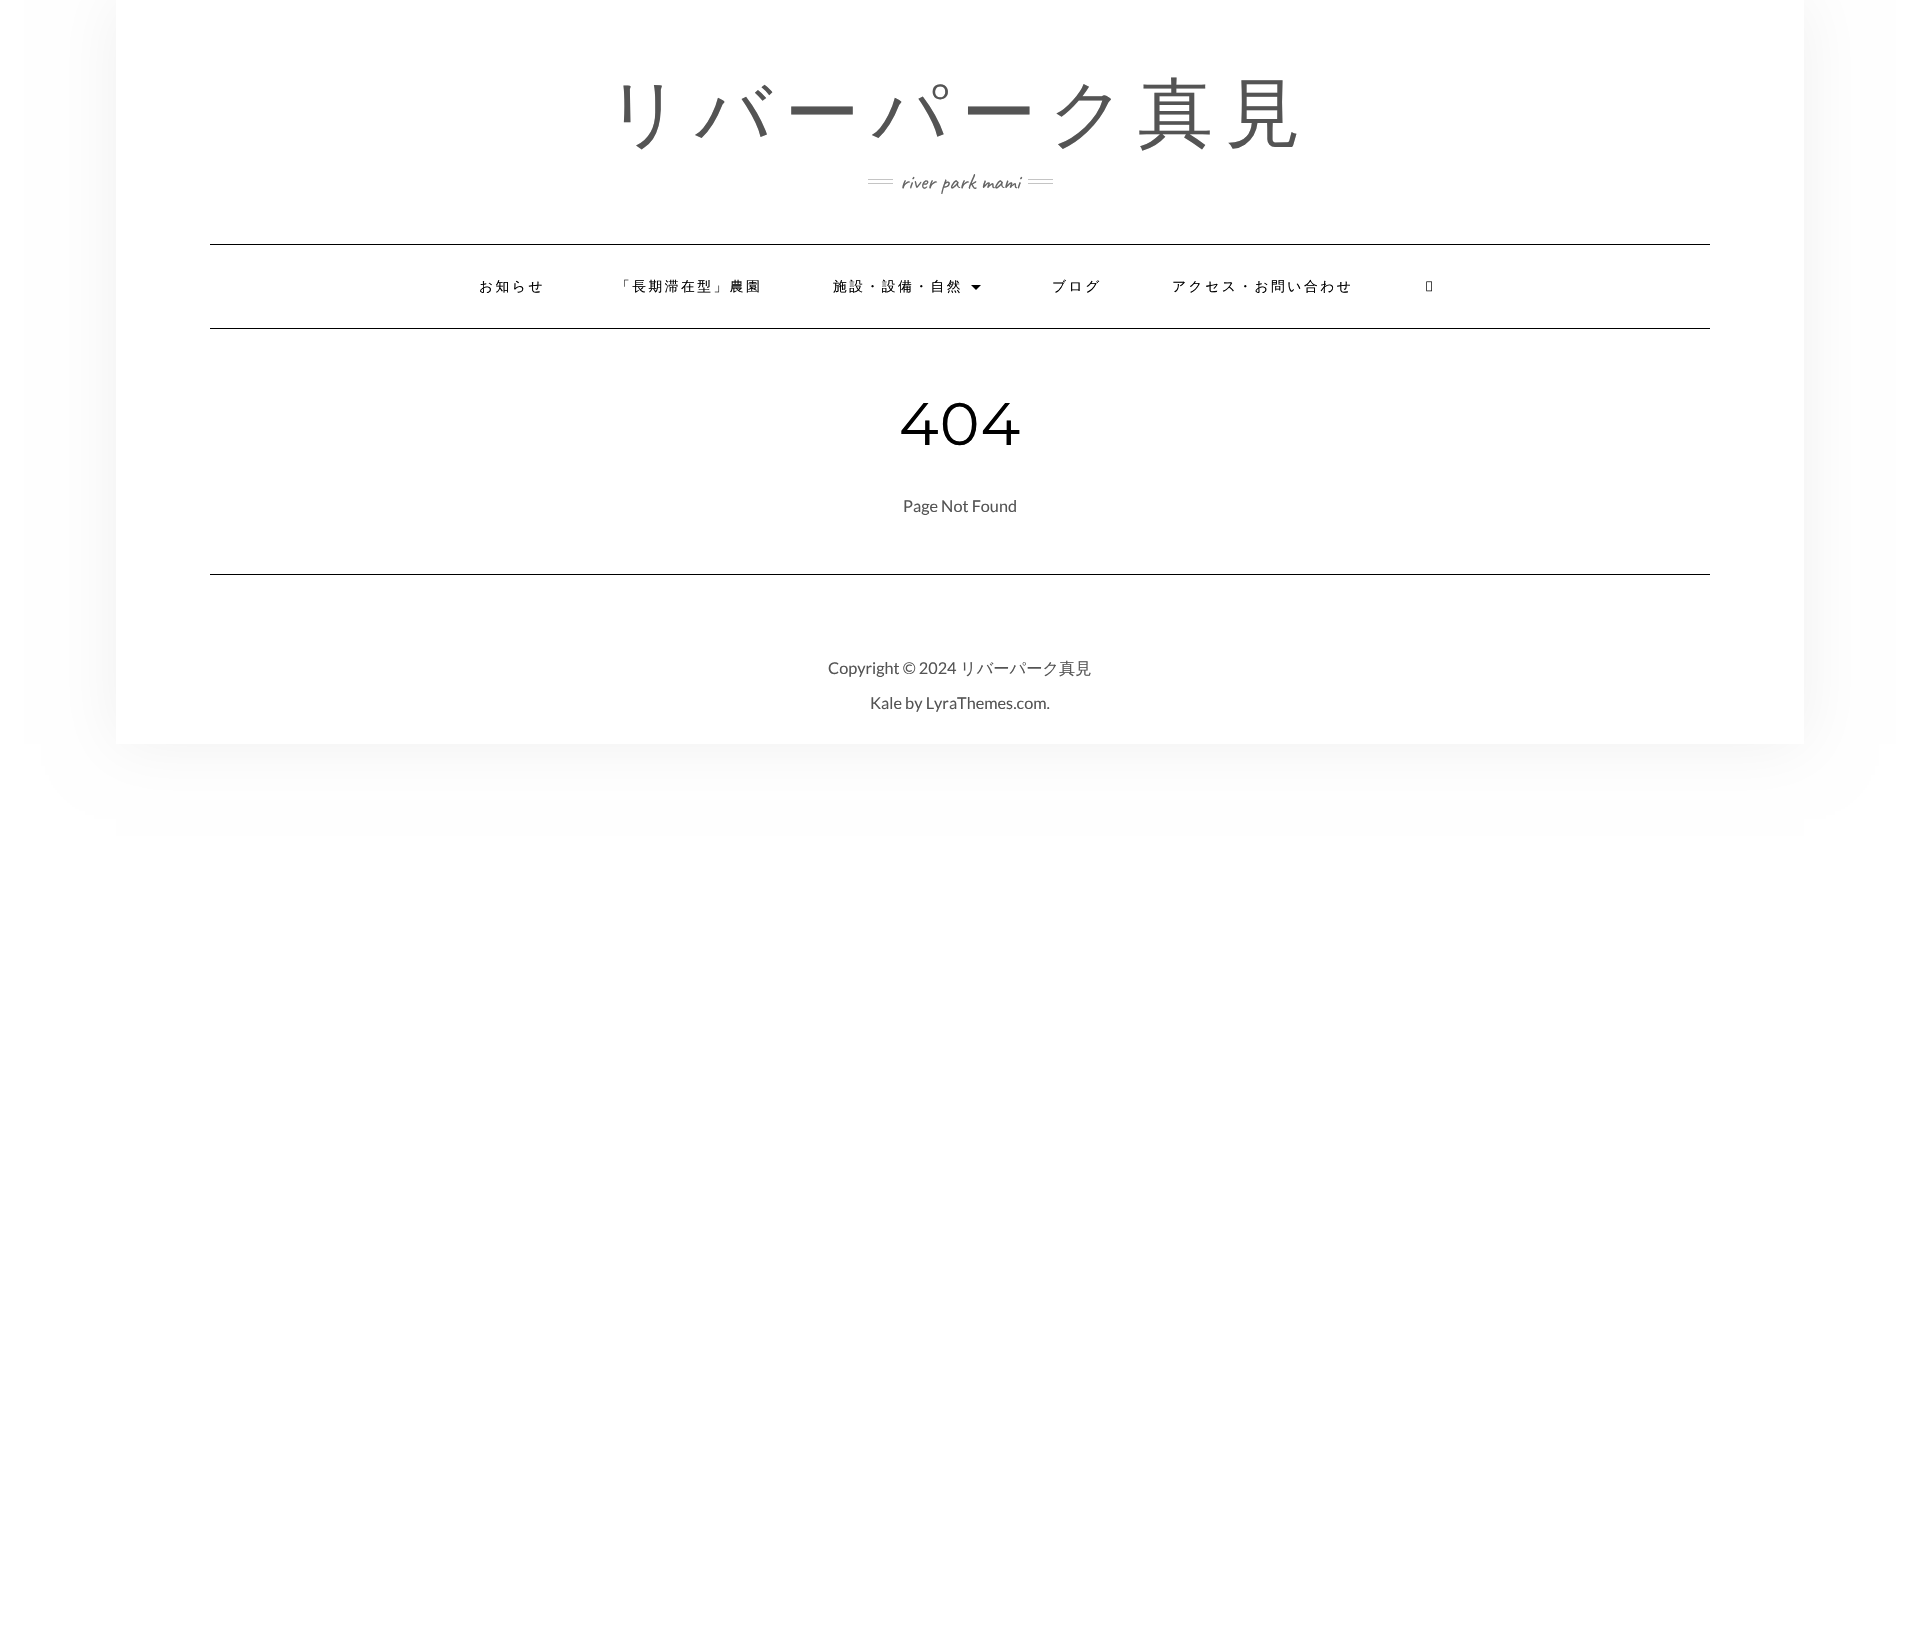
#include "include/core/SkBlurTypes.h"
#include "include/core/SkCanvas.h"
#include "include/core/SkData.h"
#include "include/core/SkFont.h"
#include "include/core/SkFontMgr.h"
#include "include/core/SkImage.h"
#include "include/core/SkMaskFilter.h"
#include "include/core/SkPaint.h"
#include "include/core/SkPathBuilder.h"
#include "include/core/SkTextBlob.h"
#include "include/effects/SkDashPathEffect.h"
#include "include/effects/SkGradientShader.h"
#include "include/utils/SkParsePath.h"

extern sk_sp<SkFontMgr> fontMgr;

void draw(SkCanvas* canvas) {
    SkPaint p;
    p.setAntiAlias(true);
    auto font = [&](const char* family, int weight, float size, bool italic = false) {
        SkFontStyle style(weight, SkFontStyle::kNormal_Width,
            italic ? SkFontStyle::kItalic_Slant : SkFontStyle::kUpright_Slant);
        SkFont result(fontMgr->matchFamilyStyle(family, style), size);
        result.setSubpixel(true);
        return result;
    };
    auto drawTracked = [&](const char* s, float x, float y, const SkFont& font, const SkPaint& ink, float letter, float word) {
        std::vector<SkGlyphID> glyphs(font.countText(s, strlen(s), SkTextEncoding::kUTF8));
        std::vector<float> xs(glyphs.size());
        font.textToGlyphs(s, strlen(s), SkTextEncoding::kUTF8, glyphs);
        font.getXPos(glyphs, xs, x);
        float extra = 0;
        for (size_t i = 0; i < glyphs.size(); i++) {
            xs[i] += extra;
            extra += letter + word * (glyphs[i] == font.unicharToGlyph(' '));
        }
        canvas->drawTextBlob(SkTextBlob::MakeFromPosHGlyphs(glyphs, xs, y, font), 0, 0, ink);
    };
    auto drawPhoto = [&](const char* path, float l, float t, float r, float b) {
        auto image = SkImages::DeferredFromEncodedData(SkData::MakeFromFileName(path));
        canvas->drawImageRect(image, SkRect::MakeLTRB(l, t, r, b), SkSamplingOptions());
    };
    canvas->clear(0xFFFFFFFF);
    p.setColor(0x0F000000);
    p.setMaskFilter(SkMaskFilter::MakeBlur(kNormal_SkBlurStyle, 31));
    canvas->drawRect(SkRect::MakeLTRB(116, 0, 1804, 744), p);
    p.setMaskFilter(nullptr);
    p.setColor(0xFFFFFFFF);
    canvas->drawRect(SkRect::MakeLTRB(116, 0, 1804, 744), p);
    auto font1 = font("WenQuanYi Zen Hei", 500, 75);
    p.setColor(0xFF545454);
    drawTracked("リバーパーク真見", 606, 139, font1, p, 12.5f, 0);
    p.setColor(0xFFC4C4C4);
    canvas->drawRect(SkRect::MakeLTRB(868, 179, 893, 180), p);
    canvas->drawRect(SkRect::MakeLTRB(868, 183, 893, 184), p);
    auto font2 = font("Caveat", 400, 22.5f);
    p.setColor(0xFF646464);
    canvas->drawString("river park mami", 900, 189, font2, p);
    {
        const struct { float l, t, r, b; SkColor color; } items[] = {
            {1028, 179, 1053, 180, 0xFFC4C4C4},
            {1028, 183, 1053, 184, 0xFFC4C4C4},
            {210, 244, 1710, 245, 0xFF000000},
            {210, 328, 1710, 329, 0xFF000000},
        };
        for (auto [l, t, r, b, color] : items) {
            p.setColor(color);
            canvas->drawRect(SkRect::MakeLTRB(l, t, r, b), p);
        }
    }
    auto font3 = font("WenQuanYi Zen Hei", 500, 13.75f);
    {
        const struct { const char* s; float x, y; } items[] = {
            {"お知らせ", 479, 291},
            {"「長期滞在型」農園", 616, 291},
            {"施設・設備・自然", 833, 291},
        };
        for (auto [s, x, y] : items) {
            drawTracked(s, x, y, font3, p, 2.5f, 0);
        }
    }
    canvas->drawPath(SkPathBuilder().moveTo(971, 285).lineTo(981, 285).lineTo(976, 290).close().detach(), p);
    drawTracked("ブログ", 1052, 291, font3, p, 2.5f, 0);
    drawTracked("アクセス・お問い合わせ", 1172, 291, font3, p, 2.5f, 0);
    drawPhoto("media/1.png", 1426, 281, 1432, 292);
    auto font4 = font("Montserrat", 400, 60);
    drawTracked("404", 899, 445, font4, p, 1, 0);
    auto font5 = font("Lato", 400, 16.25f);
    p.setColor(0xFF545454);
    canvas->drawString("Page Not Found", 903, 512, font5, p);
    p.setColor(0xFF000000);
    canvas->drawRect(SkRect::MakeLTRB(210, 574, 1710, 575), p);
    p.setColor(0xFF545454);
    canvas->drawString("Copyright © 2024", 828, 674, font5, p);
    auto font6 = font("WenQuanYi Zen Hei", 500, 16.25f);
    canvas->drawString("リバーパーク真見", 960, 674, font6, p);
    canvas->drawString("Kale by LyraThemes.com.", 870, 709, font5, p);
}
